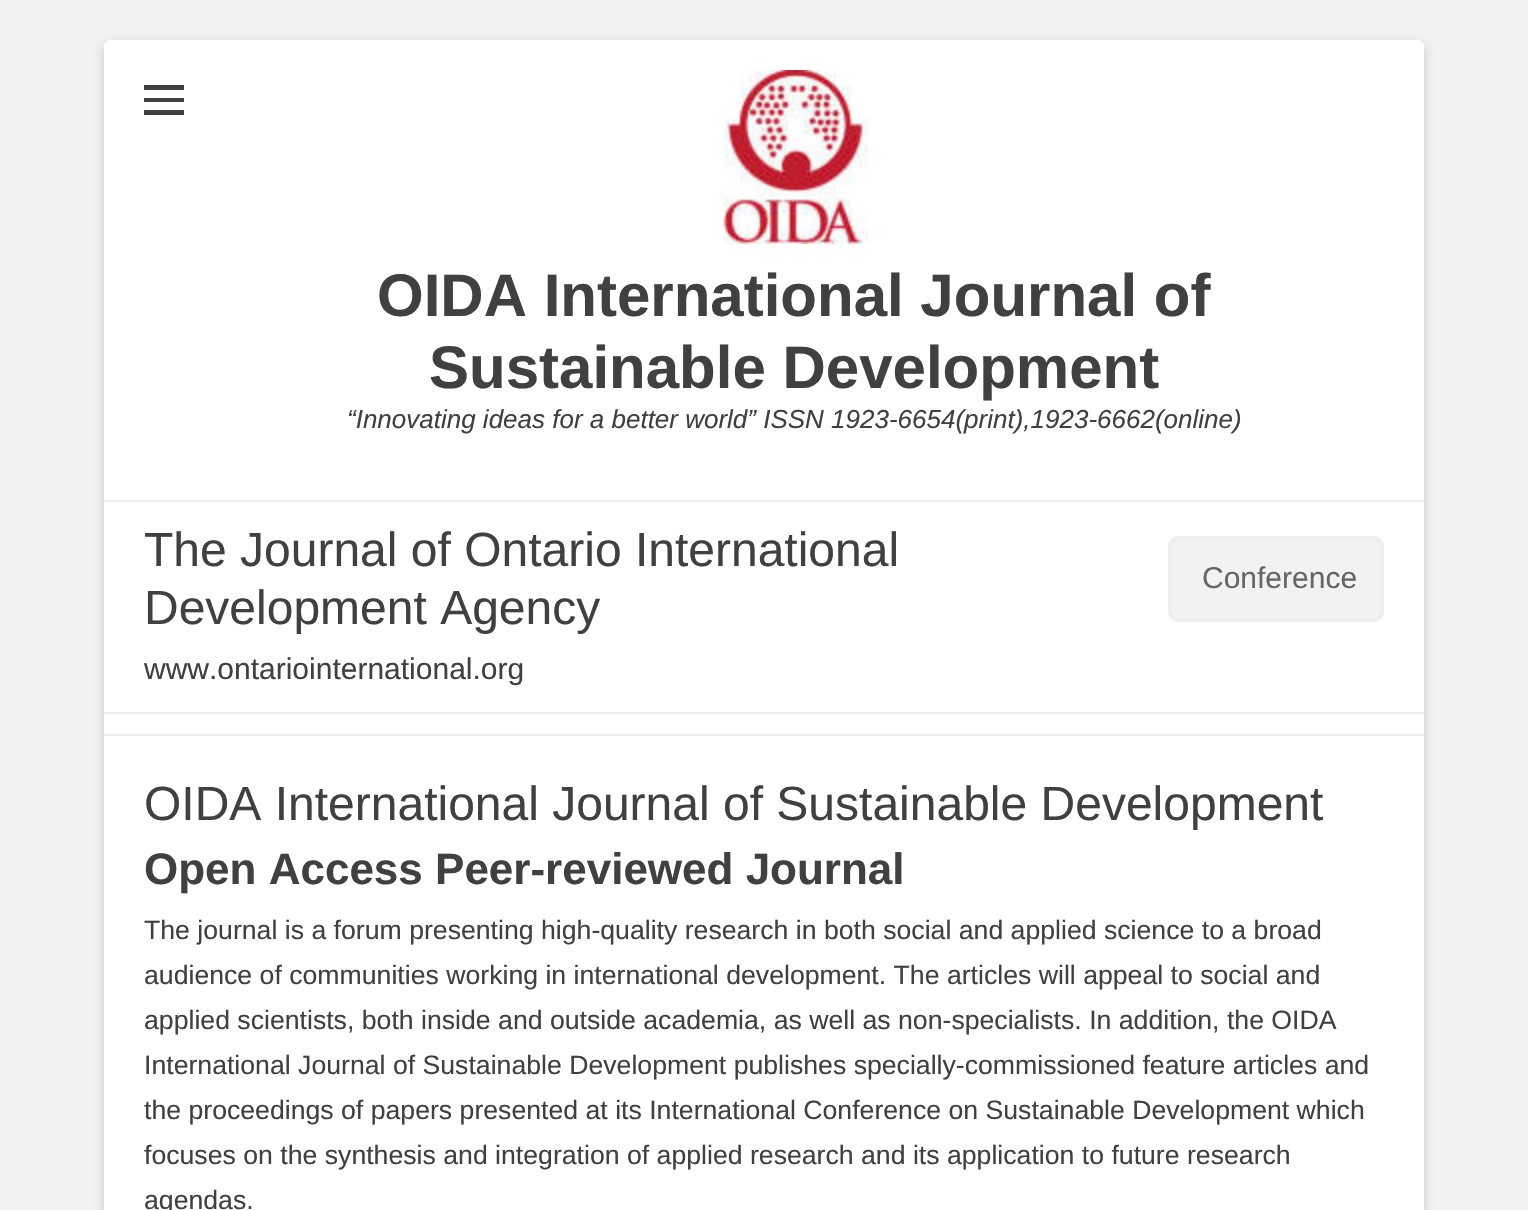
#include "include/core/SkBlurTypes.h"
#include "include/core/SkCanvas.h"
#include "include/core/SkData.h"
#include "include/core/SkFont.h"
#include "include/core/SkFontMgr.h"
#include "include/core/SkImage.h"
#include "include/core/SkMaskFilter.h"
#include "include/core/SkPaint.h"
#include "include/core/SkPathBuilder.h"
#include "include/core/SkTextBlob.h"
#include "include/effects/SkDashPathEffect.h"
#include "include/effects/SkGradientShader.h"
#include "include/utils/SkParsePath.h"

extern sk_sp<SkFontMgr> fontMgr;

void draw(SkCanvas* canvas) {
    SkPaint p;
    p.setAntiAlias(true);
    auto font = [&](const char* family, int weight, float size, bool italic = false) {
        SkFontStyle style(weight, SkFontStyle::kNormal_Width,
            italic ? SkFontStyle::kItalic_Slant : SkFontStyle::kUpright_Slant);
        SkFont result(fontMgr->matchFamilyStyle(family, style), size);
        result.setSubpixel(true);
        return result;
    };
    auto drawPhoto = [&](const char* path, float l, float t, float r, float b) {
        auto image = SkImages::DeferredFromEncodedData(SkData::MakeFromFileName(path));
        canvas->drawImageRect(image, SkRect::MakeLTRB(l, t, r, b), SkSamplingOptions());
    };
    canvas->clear(0xFFF2F2F2);
    p.setColor(0x4D646464);
    p.setMaskFilter(SkMaskFilter::MakeBlur(kNormal_SkBlurStyle, 6));
    canvas->drawRoundRect(SkRect::MakeLTRB(104, 44, 1424, 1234), 6, 6, p);
    p.setMaskFilter(nullptr);
    p.setColor(0xFFFFFFFF);
    canvas->drawRoundRect(SkRect::MakeLTRB(104, 40, 1424, 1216), 6, 6, p);
    p.setColor(0xFF404040);
    canvas->drawPath(SkPathBuilder().moveTo(144, 115).lineTo(144, 110).lineTo(184, 110).lineTo(184, 115).close().moveTo(144, 85).lineTo(184, 85).lineTo(184, 90).lineTo(144, 90).close().moveTo(144, 102).lineTo(144, 98).lineTo(184, 98).lineTo(184, 102).close().detach(), p);
    drawPhoto("media/1.png", 723, 70, 869, 244);
    auto font1 = font("Liberation Sans", 700, 60);
    canvas->drawString("OIDA International Journal of", 377, 316, font1, p);
    canvas->drawString("Sustainable Development", 429, 388, font1, p);
    auto font2 = font("Liberation Sans", 400, 26, true);
    canvas->drawString("“Innovating ideas for a better world” ISSN 1923-6654(print),1923-6662(online)", 347, 428, font2, p);
    p.setColor(0xFFEEEEEE);
    canvas->drawRect(SkRect::MakeLTRB(104, 500, 1424, 502), p);
    canvas->drawRect(SkRect::MakeLTRB(104, 712, 1424, 714), p);
    auto font3 = font("Liberation Sans", 400, 48);
    p.setColor(0xFF404040);
    canvas->drawString("The Journal of Ontario International", 144, 566, font3, p);
    canvas->drawString("Development Agency", 144, 624, font3, p);
    auto font4 = font("Liberation Sans", 400, 30);
    canvas->drawString("www.ontariointernational.org", 144, 679, font4, p);
    p.setColor(0xFFF2F2F2);
    canvas->drawRoundRect(SkRect::MakeLTRB(1170, 538, 1382, 620), 8, 8, p);
    p.setStyle(SkPaint::kStroke_Style);
    p.setStrokeWidth(4);
    p.setColor(0xFFEEEEEE);
    canvas->drawRoundRect(SkRect::MakeLTRB(1170, 538, 1382, 620), 8, 8, p);
    p.setStyle(SkPaint::kFill_Style);
    p.setColor(0xFF666666);
    canvas->drawString("Conference", 1202, 588, font4, p);
    p.setColor(0xFFEEEEEE);
    canvas->drawRect(SkRect::MakeLTRB(104, 734, 1424, 736), p);
    p.setColor(0xFF404040);
    canvas->drawString("OIDA International Journal of Sustainable Development", 144, 820, font3, p);
    auto font5 = font("Liberation Sans", 700, 44);
    canvas->drawString("Open Access Peer-reviewed Journal", 144, 884, font5, p);
    auto font6 = font("Liberation Sans", 400, 26.65f);
    {
        const struct { const char* s; float x, y; } items[] = {
            {"The journal is a forum presenting high-quality research in both social and applied science to a broad", 144, 939},
            {"audience of communities working in international development. The articles will appeal to social and", 144, 984},
            {"applied scientists, both inside and outside academia, as well as non-specialists. In addition, the OIDA", 144, 1029},
            {"International Journal of Sustainable Development publishes specially-commissioned feature articles and", 144, 1074},
            {"the proceedings of papers presented at its International Conference on Sustainable Development which", 144, 1119},
            {"focuses on the synthesis and integration of applied research and its application to future research", 144, 1164},
            {"agendas.", 144, 1209},
        };
        for (auto [s, x, y] : items) {
            canvas->drawString(s, x, y, font6, p);
        }
    }
}
